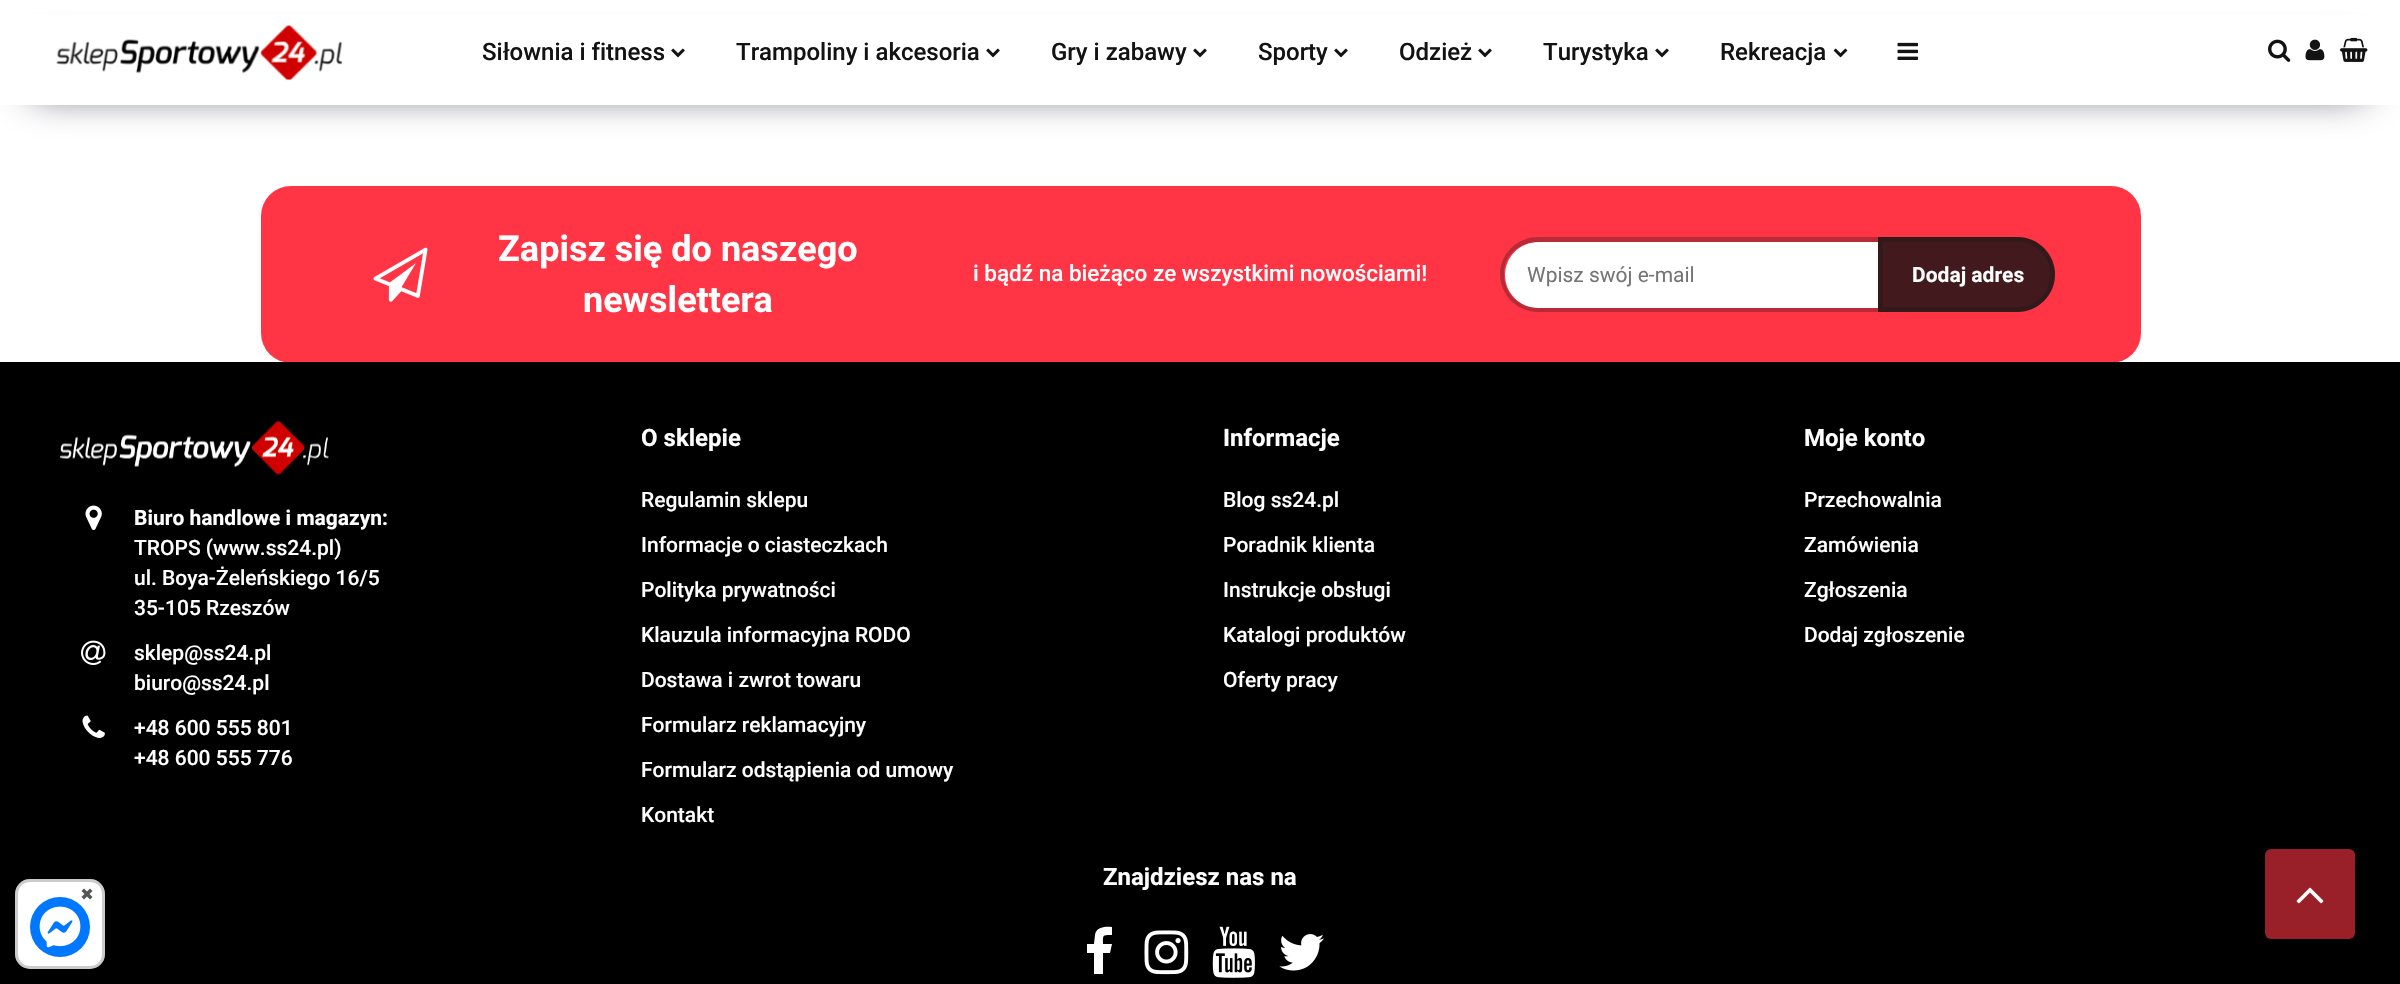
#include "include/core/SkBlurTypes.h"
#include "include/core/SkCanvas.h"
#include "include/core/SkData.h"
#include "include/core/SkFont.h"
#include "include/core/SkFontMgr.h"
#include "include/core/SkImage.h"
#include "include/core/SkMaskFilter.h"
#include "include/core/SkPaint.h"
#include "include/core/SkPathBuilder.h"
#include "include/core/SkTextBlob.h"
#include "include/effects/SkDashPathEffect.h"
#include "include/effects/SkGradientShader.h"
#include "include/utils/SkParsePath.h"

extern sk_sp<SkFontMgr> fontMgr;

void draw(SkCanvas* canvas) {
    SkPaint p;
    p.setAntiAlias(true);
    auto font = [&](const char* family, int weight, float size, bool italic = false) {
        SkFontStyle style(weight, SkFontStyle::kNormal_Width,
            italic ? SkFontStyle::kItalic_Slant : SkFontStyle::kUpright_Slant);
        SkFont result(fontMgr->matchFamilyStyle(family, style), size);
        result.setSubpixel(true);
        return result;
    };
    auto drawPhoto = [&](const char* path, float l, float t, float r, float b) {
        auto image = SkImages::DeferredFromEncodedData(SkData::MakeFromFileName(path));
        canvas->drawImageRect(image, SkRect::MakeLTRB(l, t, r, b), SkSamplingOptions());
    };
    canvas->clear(0xFFFFFFFF);
    p.setColor(0xFFFF3545);
    canvas->drawRoundRect(SkRect::MakeLTRB(261, 186, 2141, 363), 30, 30, p);
    p.setColor(0xFF000000);
    canvas->drawRect(SkRect::MakeLTRB(0, 362, 2400, 984), p);
    p.setColor(0xFFFFFFFF);
    canvas->drawRoundRect(SkRect::MakeLTRB(15, 879, 105, 969), 15, 15, p);
    p.setStyle(SkPaint::kStroke_Style);
    p.setStrokeWidth(3);
    p.setColor(0x33000000);
    canvas->drawRoundRect(SkRect::MakeLTRB(16.5f, 880.5f, 103.5f, 967.5f), 13.5f, 13.5f, p);
    p.setStyle(SkPaint::kFill_Style);
    p.setColor(0xFF0077FF);
    canvas->drawCircle(60, 927, 30, p);
    p.setColor(0xFF555555);
    canvas->drawPath(SkPathBuilder().moveTo(90, 888.5f).lineTo(92.5f, 891).lineTo(84, 899.5f).lineTo(81.5f, 897).close().detach(), p);
    canvas->drawPath(SkPathBuilder().moveTo(81.5f, 891).lineTo(84, 888.5f).lineTo(92.5f, 897).lineTo(90, 899.5f).close().detach(), p);
    drawPhoto("media/1.png", 39, 906, 81, 948);
    p.setColor(0xFF42445A);
    p.setMaskFilter(SkMaskFilter::MakeBlur(kNormal_SkBlurStyle, 19));
    canvas->drawRect(SkRect::MakeLTRB(33, 57, 2364, 93), p);
    p.setMaskFilter(nullptr);
    p.setColor(0xFFFFFFFF);
    canvas->drawRect(SkRect::MakeLTRB(0, 15, 2400, 105), p);
    drawPhoto("media/2.png", 56, 25, 342, 80);
    auto font1 = font("Roboto", 500, 24);
    p.setColor(0xFF131313);
    canvas->drawString("Siłownia i fitness", 482, 60, font1, p);
    drawPhoto("media/3.png", 671, 48, 685, 58);
    canvas->drawString("Trampoliny i akcesoria", 736, 60, font1, p);
    drawPhoto("media/3.png", 986, 48, 1000, 58);
    canvas->drawString("Gry i zabawy", 1051, 60, font1, p);
    drawPhoto("media/3.png", 1193, 48, 1207, 58);
    canvas->drawString("Sporty", 1258, 60, font1, p);
    drawPhoto("media/3.png", 1334, 48, 1348, 58);
    canvas->drawString("Odzież", 1399, 60, font1, p);
    drawPhoto("media/3.png", 1478, 48, 1492, 58);
    canvas->drawString("Turystyka", 1543, 60, font1, p);
    drawPhoto("media/3.png", 1655, 48, 1669, 58);
    canvas->drawString("Rekreacja", 1720, 60, font1, p);
    drawPhoto("media/4.png", 1833, 48, 1848, 58);
    drawPhoto("media/5.png", 1897, 42, 1919, 60);
    drawPhoto("media/6.png", 2268, 39, 2291, 62);
    drawPhoto("media/7.png", 2305, 39, 2325, 61);
    drawPhoto("media/8.png", 2340, 37, 2368, 62);
    drawPhoto("media/9.png", 373, 247, 428, 302);
    auto font2 = font("Roboto", 700, 36);
    p.setColor(0xFFFFFFFF);
    canvas->drawString("Zapisz się do naszego", 498, 261, font2, p);
    canvas->drawString("newslettera", 583, 312, font2, p);
    auto font3 = font("Roboto", 500, 22.5f);
    canvas->drawString("i bądź na bieżąco ze wszystkimi nowościami!", 973, 281, font3, p);
    canvas->drawPath(SkPathBuilder().moveTo(1538, 242).lineTo(1878, 242).lineTo(1878, 308).lineTo(1538, 308).cubicTo(1520, 308, 1505, 293, 1505, 275).cubicTo(1505, 257, 1520, 242, 1538, 242).close().detach(), p);
    p.setColor(0x4D131313);
    canvas->drawPath(SkPathBuilder(SkPathFillType::kEvenOdd).moveTo(1538, 237).lineTo(1878, 237).lineTo(1878, 312).lineTo(1538, 312).cubicTo(1517, 312, 1500, 295, 1500, 274).cubicTo(1500, 254, 1517, 237, 1538, 237).close().moveTo(1538, 242).lineTo(1878, 242).lineTo(1878, 308).lineTo(1538, 308).cubicTo(1519, 308, 1504, 293, 1504, 274).cubicTo(1504, 256, 1519, 242, 1538, 242).close().detach(), p);
    auto font4 = font("Roboto", 400, 21);
    p.setColor(0xFF757575);
    canvas->drawString("Wpisz swój e-mail", 1527, 282, font4, p);
    p.setColor(0xFF421A1D);
    canvas->drawPath(SkPathBuilder().moveTo(1878, 237).lineTo(2017.5f, 237).cubicTo(2038, 237, 2055, 254, 2055, 274.5f).cubicTo(2055, 295, 2038, 312, 2017.5f, 312).lineTo(1878, 312).close().detach(), p);
    p.setStyle(SkPaint::kStroke_Style);
    p.setStrokeWidth(5);
    p.setColor(0x4D131313);
    canvas->drawPath(SkPathBuilder().moveTo(1880.5f, 239.5f).lineTo(2017.5f, 239.5f).cubicTo(2037, 239.5f, 2052.5f, 255, 2052.5f, 274.5f).cubicTo(2052.5f, 294, 2037, 309.5f, 2017.5f, 309.5f).lineTo(1880.5f, 309.5f).close().detach(), p);
    auto font5 = font("Roboto", 700, 21);
    p.setStyle(SkPaint::kFill_Style);
    p.setColor(0xFFFFFFFF);
    canvas->drawString("Dodaj adres", 1912, 282, font5, p);
    drawPhoto("media/10.png", 60, 421, 329, 475);
    drawPhoto("media/11.png", 85, 505, 102, 530);
    canvas->drawString("Biuro handlowe i magazyn:", 134, 525, font5, p);
    auto font6 = font("Roboto", 500, 21);
    {
        const struct { const char* s; float x, y; } items[] = {
            {"TROPS (www.ss24.pl)", 134, 555},
            {"ul. Boya-Żeleńskiego 16/5", 134, 585},
            {"35-105 Rzeszów", 134, 615},
        };
        for (auto [s, x, y] : items) {
            canvas->drawString(s, x, y, font6, p);
        }
    }
    drawPhoto("media/12.png", 81, 640, 106, 665);
    canvas->drawString("sklep@ss24.pl", 134, 660, font6, p);
    canvas->drawString("biuro@ss24.pl", 134, 690, font6, p);
    drawPhoto("media/13.png", 82, 715, 105, 738);
    canvas->drawString("+48 600 555 801", 134, 735, font6, p);
    canvas->drawString("+48 600 555 776", 134, 765, font6, p);
    auto font7 = font("Roboto", 700, 24);
    canvas->drawString("O sklepie", 641, 446, font7, p);
    {
        const struct { const char* s; float x, y; } items[] = {
            {"Regulamin sklepu", 641, 507},
            {"Informacje o ciasteczkach", 641, 552},
            {"Polityka prywatności", 641, 597},
            {"Klauzula informacyjna RODO", 641, 642},
            {"Dostawa i zwrot towaru", 641, 687},
            {"Formularz reklamacyjny", 641, 732},
            {"Formularz odstąpienia od umowy", 641, 777},
            {"Kontakt", 641, 822},
        };
        for (auto [s, x, y] : items) {
            canvas->drawString(s, x, y, font6, p);
        }
    }
    canvas->drawString("Informacje", 1223, 446, font7, p);
    {
        const struct { const char* s; float x, y; } items[] = {
            {"Blog ss24.pl", 1223, 507},
            {"Poradnik klienta", 1223, 552},
            {"Instrukcje obsługi", 1223, 597},
            {"Katalogi produktów", 1223, 642},
            {"Oferty pracy", 1223, 687},
        };
        for (auto [s, x, y] : items) {
            canvas->drawString(s, x, y, font6, p);
        }
    }
    canvas->drawString("Moje konto", 1804, 446, font7, p);
    {
        const struct { const char* s; float x, y; } items[] = {
            {"Przechowalnia", 1804, 507},
            {"Zamówienia", 1804, 552},
            {"Zgłoszenia", 1804, 597},
            {"Dodaj zgłoszenie", 1804, 642},
        };
        for (auto [s, x, y] : items) {
            canvas->drawString(s, x, y, font6, p);
        }
    }
    canvas->drawString("Znajdziesz nas na", 1103, 885, font7, p);
    canvas->drawPath(SkPathBuilder().moveTo(1112, 927).lineTo(1112, 935).cubicTo(1102, 935, 1103, 935, 1103, 944).lineTo(1112, 944).lineTo(1110, 953).lineTo(1103, 953).lineTo(1103, 974).lineTo(1094, 974).lineTo(1094, 953).lineTo(1087, 953).lineTo(1087, 944).lineTo(1094, 944).lineTo(1095, 935).cubicTo(1096, 927, 1105, 926, 1112, 927).close().detach(), p);
    drawPhoto("media/14.png", 1144, 930, 1189, 975);
    drawPhoto("media/15.png", 1212, 926, 1255, 978);
    drawPhoto("media/16.png", 1279, 934, 1324, 971);
    p.setColor(0xFF992029);
    canvas->drawRoundRect(SkRect::MakeLTRB(2265, 849, 2355, 939), 6, 6, p);
    drawPhoto("media/17.png", 2296, 887, 2324, 904);
}
